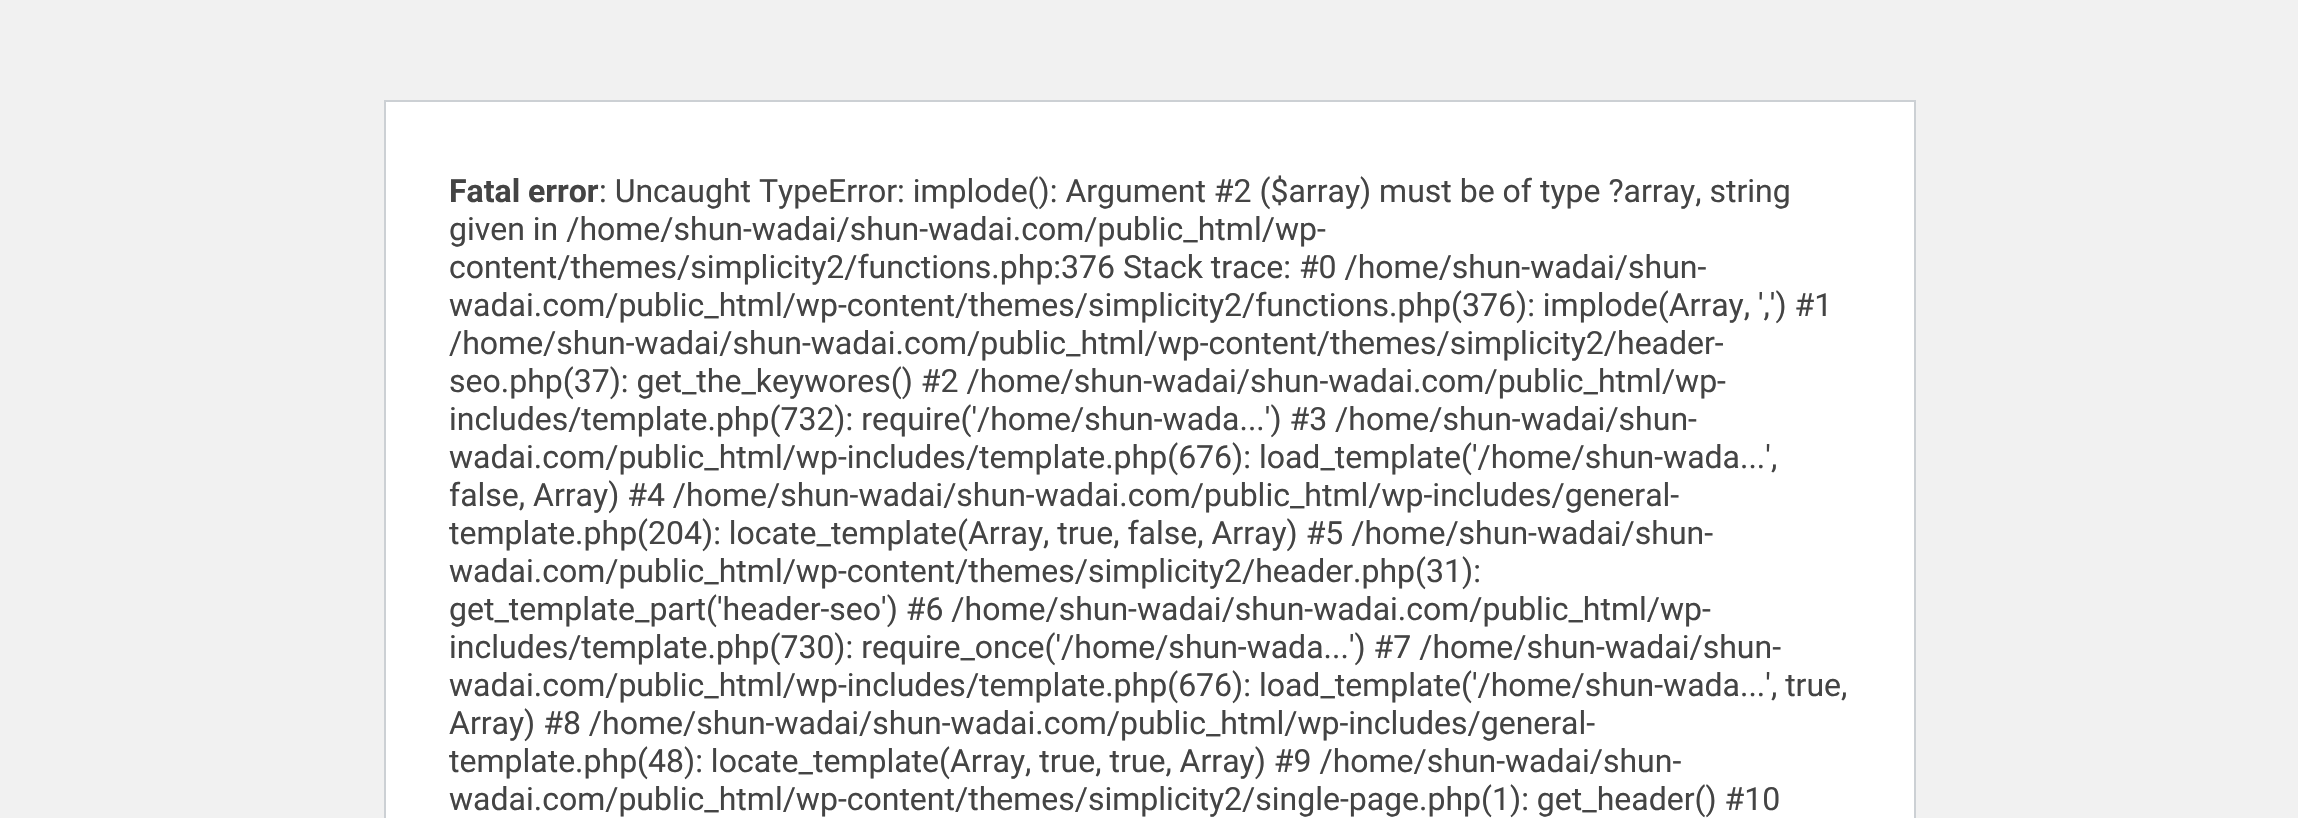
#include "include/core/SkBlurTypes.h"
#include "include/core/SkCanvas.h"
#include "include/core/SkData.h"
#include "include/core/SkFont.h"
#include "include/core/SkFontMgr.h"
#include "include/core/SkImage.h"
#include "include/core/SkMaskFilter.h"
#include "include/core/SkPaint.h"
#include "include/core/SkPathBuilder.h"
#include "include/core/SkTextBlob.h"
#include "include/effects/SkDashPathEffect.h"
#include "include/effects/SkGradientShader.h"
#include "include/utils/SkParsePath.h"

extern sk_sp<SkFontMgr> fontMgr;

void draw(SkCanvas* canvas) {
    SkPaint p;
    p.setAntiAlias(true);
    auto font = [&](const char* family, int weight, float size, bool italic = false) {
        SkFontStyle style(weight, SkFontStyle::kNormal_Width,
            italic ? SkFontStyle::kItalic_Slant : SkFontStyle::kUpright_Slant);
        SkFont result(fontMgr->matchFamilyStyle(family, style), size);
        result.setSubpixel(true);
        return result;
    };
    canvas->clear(0xFFF1F1F1);
    p.setColor(0xFFFFFFFF);
    canvas->drawRect(SkRect::MakeLTRB(385, 101, 1915, 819), p);
    p.setStyle(SkPaint::kStroke_Style);
    p.setStrokeWidth(2);
    p.setColor(0xFFCCD0D4);
    canvas->drawRect(SkRect::MakeLTRB(385, 101, 1915, 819), p);
    auto font1 = font("Roboto", 700, 32);
    p.setStyle(SkPaint::kFill_Style);
    p.setColor(0xFF444444);
    canvas->drawString("Fatal error", 449, 202, font1, p);
    auto font2 = font("Roboto", 400, 32);
    {
        const struct { const char* s; float x, y; } items[] = {
            {": Uncaught TypeError: implode(): Argument #2 ($array) must be of type ?array, string", 599, 202},
            {"given in /home/shun-wadai/shun-wadai.com/public_html/wp-", 449, 240},
            {"content/themes/simplicity2/functions.php:376 Stack trace: #0 /home/shun-wadai/shun-", 449, 278},
            {"wadai.com/public_html/wp-content/themes/simplicity2/functions.php(376): implode(Array, ',') #1", 449, 316},
            {"/home/shun-wadai/shun-wadai.com/public_html/wp-content/themes/simplicity2/header-", 449, 354},
            {"seo.php(37): get_the_keywores() #2 /home/shun-wadai/shun-wadai.com/public_html/wp-", 449, 392},
            {"includes/template.php(732): require('/home/shun-wada...') #3 /home/shun-wadai/shun-", 449, 430},
            {"wadai.com/public_html/wp-includes/template.php(676): load_template('/home/shun-wada...',", 449, 468},
            {"false, Array) #4 /home/shun-wadai/shun-wadai.com/public_html/wp-includes/general-", 449, 506},
            {"template.php(204): locate_template(Array, true, false, Array) #5 /home/shun-wadai/shun-", 449, 544},
            {"wadai.com/public_html/wp-content/themes/simplicity2/header.php(31):", 449, 582},
            {"get_template_part('header-seo') #6 /home/shun-wadai/shun-wadai.com/public_html/wp-", 449, 620},
            {"includes/template.php(730): require_once('/home/shun-wada...') #7 /home/shun-wadai/shun-", 449, 658},
            {"wadai.com/public_html/wp-includes/template.php(676): load_template('/home/shun-wada...', true,", 449, 696},
            {"Array) #8 /home/shun-wadai/shun-wadai.com/public_html/wp-includes/general-", 449, 734},
            {"template.php(48): locate_template(Array, true, true, Array) #9 /home/shun-wadai/shun-", 449, 772},
            {"wadai.com/public_html/wp-content/themes/simplicity2/single-page.php(1): get_header() #10", 449, 810},
        };
        for (auto [s, x, y] : items) {
            canvas->drawString(s, x, y, font2, p);
        }
    }
}
